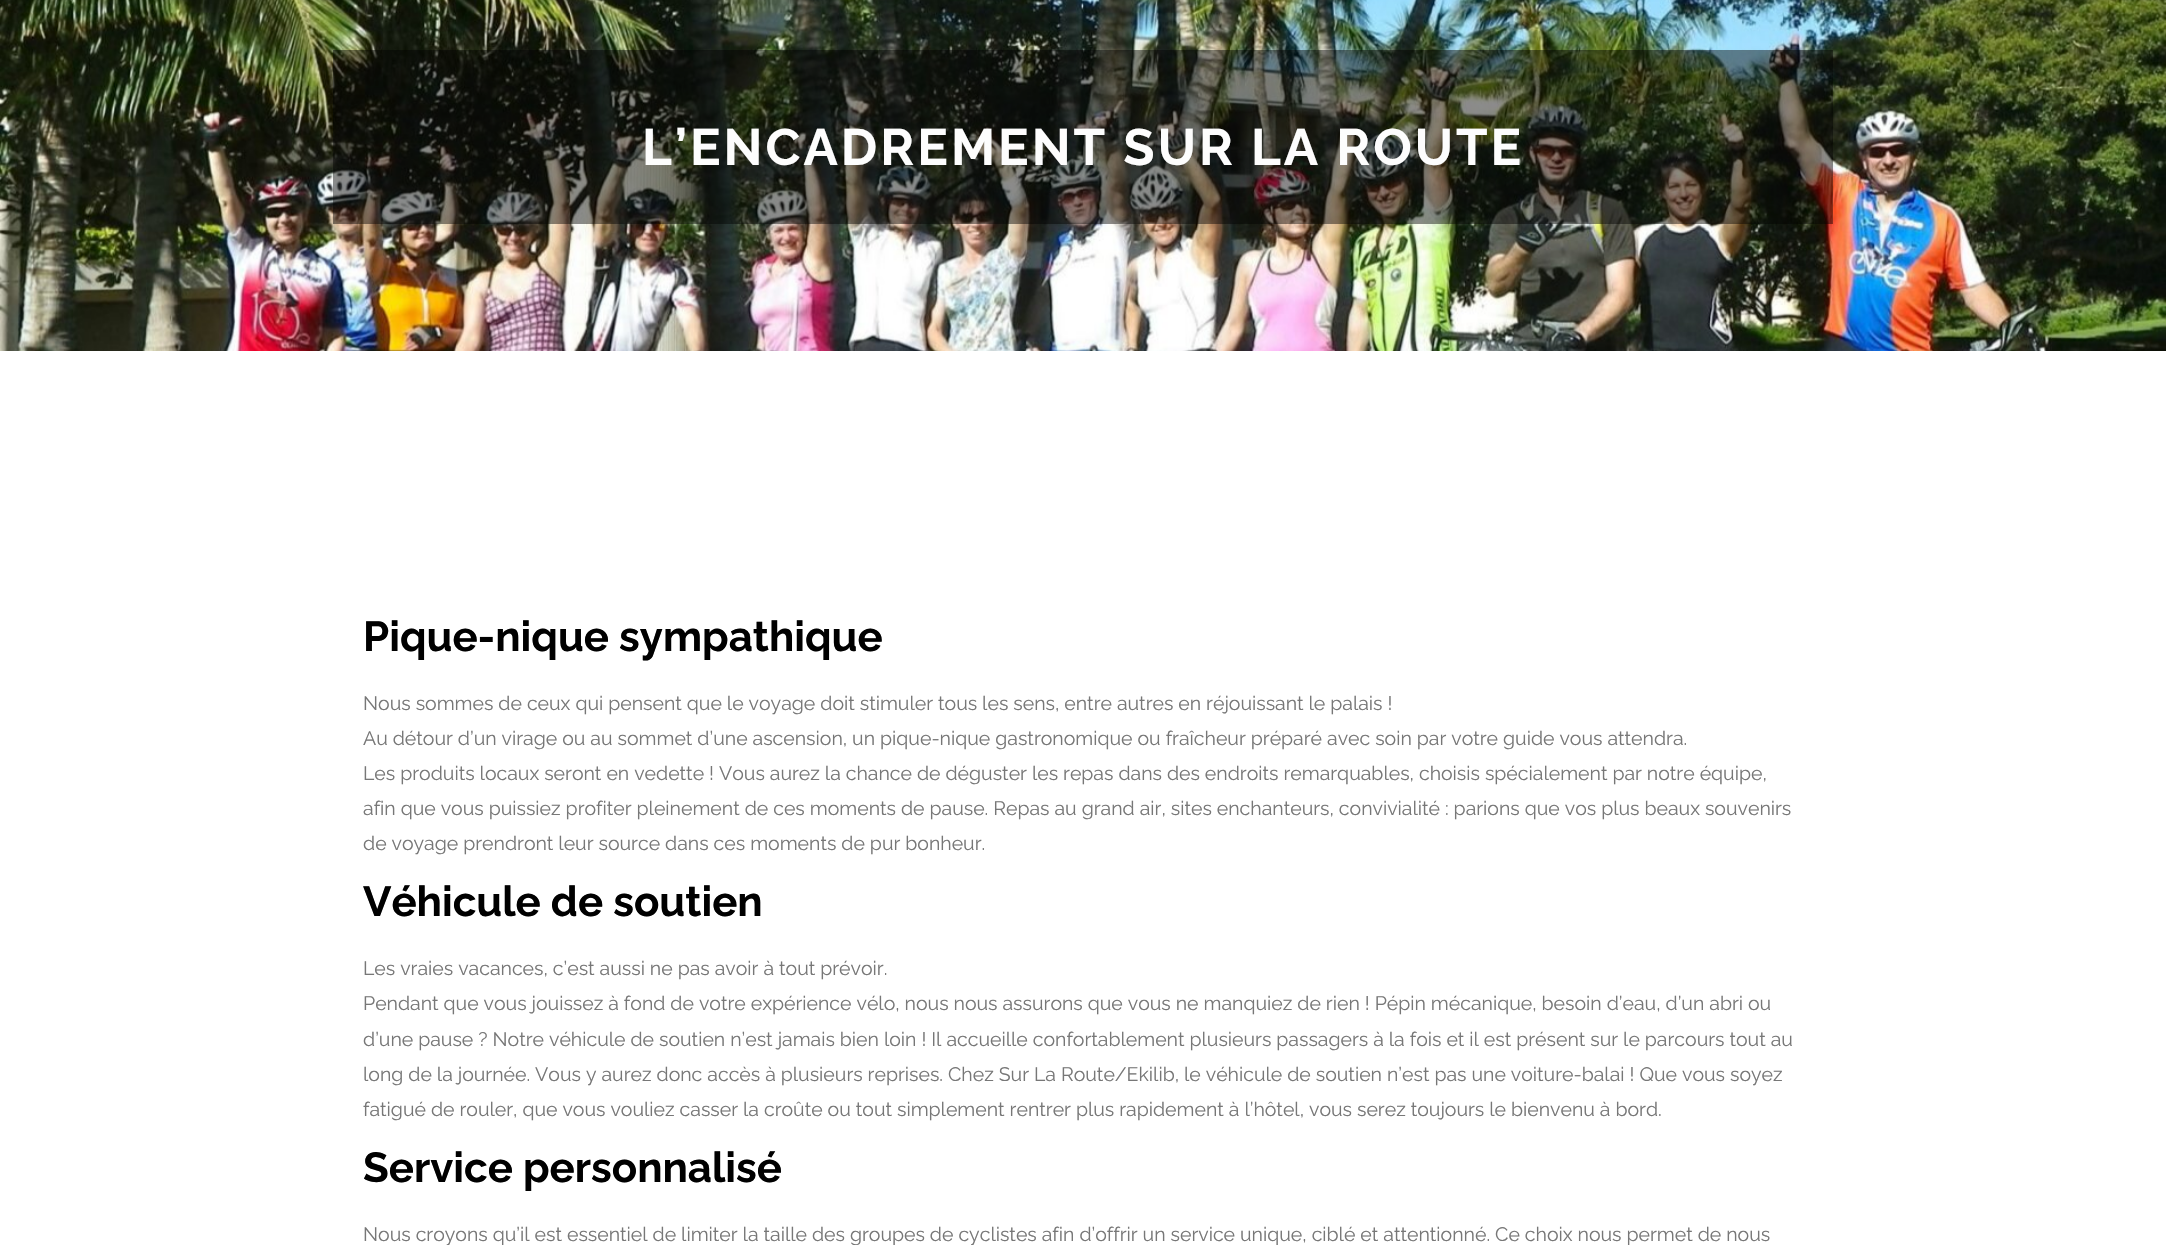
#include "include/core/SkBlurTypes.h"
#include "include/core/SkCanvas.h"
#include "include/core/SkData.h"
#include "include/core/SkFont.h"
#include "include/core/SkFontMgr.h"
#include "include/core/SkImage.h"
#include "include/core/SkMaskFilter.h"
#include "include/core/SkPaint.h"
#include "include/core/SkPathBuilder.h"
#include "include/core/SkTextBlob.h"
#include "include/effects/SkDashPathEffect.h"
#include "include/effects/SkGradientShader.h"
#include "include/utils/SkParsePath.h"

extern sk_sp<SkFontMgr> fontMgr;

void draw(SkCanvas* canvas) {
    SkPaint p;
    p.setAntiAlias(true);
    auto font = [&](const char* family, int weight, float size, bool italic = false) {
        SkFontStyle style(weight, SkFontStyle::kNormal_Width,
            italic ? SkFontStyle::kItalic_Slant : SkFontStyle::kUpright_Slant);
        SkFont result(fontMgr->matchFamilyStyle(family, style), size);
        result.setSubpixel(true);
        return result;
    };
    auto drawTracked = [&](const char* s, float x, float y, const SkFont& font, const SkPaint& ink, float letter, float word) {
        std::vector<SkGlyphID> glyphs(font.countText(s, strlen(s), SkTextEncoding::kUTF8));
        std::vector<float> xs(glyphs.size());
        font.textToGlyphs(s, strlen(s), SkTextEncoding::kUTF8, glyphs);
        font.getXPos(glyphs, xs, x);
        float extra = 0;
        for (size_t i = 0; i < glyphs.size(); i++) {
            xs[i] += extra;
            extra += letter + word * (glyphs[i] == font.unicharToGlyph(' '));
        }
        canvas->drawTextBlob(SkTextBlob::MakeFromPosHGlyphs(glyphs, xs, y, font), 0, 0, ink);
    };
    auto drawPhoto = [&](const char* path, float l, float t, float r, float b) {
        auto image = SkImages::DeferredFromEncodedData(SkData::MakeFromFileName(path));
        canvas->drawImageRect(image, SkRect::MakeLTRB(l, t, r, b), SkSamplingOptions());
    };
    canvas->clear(0xFFFFFFFF);
    drawPhoto("media/1.png", 0, 0, 2166, 351);
    p.setColor(0x73000000);
    canvas->drawRect(SkRect::MakeLTRB(333, 50, 1833, 224), p);
    auto font1 = font("Raleway", 700, 51);
    p.setColor(0xFFFDFDFD);
    drawTracked("L’ENCADREMENT SUR LA ROUTE", 642, 165, font1, p, 3, 0);
    auto font2 = font("Raleway", 700, 42);
    p.setColor(0xFF000000);
    canvas->drawString("Pique-nique sympathique", 363, 651, font2, p);
    auto font3 = font("Raleway", 400, 19.5f);
    p.setColor(0xFF777777);
    {
        const struct { const char* s; float x, y; } items[] = {
            {"Nous sommes de ceux qui pensent que le voyage doit stimuler tous les sens, entre autres en réjouissant le palais !", 363, 710},
            {"Au détour d’un virage ou au sommet d’une ascension, un pique-nique gastronomique ou fraîcheur préparé avec soin par votre guide vous attendra.", 363, 745},
            {"Les produits locaux seront en vedette ! Vous aurez la chance de déguster les repas dans des endroits remarquables, choisis spécialement par notre équipe,", 363, 780},
            {"afin que vous puissiez profiter pleinement de ces moments de pause. Repas au grand air, sites enchanteurs, convivialité : parions que vos plus beaux souvenirs", 363, 815},
            {"de voyage prendront leur source dans ces moments de pur bonheur.", 363, 850},
        };
        for (auto [s, x, y] : items) {
            canvas->drawString(s, x, y, font3, p);
        }
    }
    p.setColor(0xFF000000);
    canvas->drawString("Véhicule de soutien", 363, 916, font2, p);
    p.setColor(0xFF777777);
    {
        const struct { const char* s; float x, y; } items[] = {
            {"Les vraies vacances, c’est aussi ne pas avoir à tout prévoir.", 363, 975},
            {"Pendant que vous jouissez à fond de votre expérience vélo, nous nous assurons que vous ne manquiez de rien ! Pépin mécanique, besoin d’eau, d’un abri ou", 363, 1010},
            {"d’une pause ? Notre véhicule de soutien n’est jamais bien loin ! Il accueille confortablement plusieurs passagers à la fois et il est présent sur le parcours tout au", 363, 1046},
            {"long de la journée. Vous y aurez donc accès à plusieurs reprises. Chez Sur La Route/Ekilib, le véhicule de soutien n’est pas une voiture-balai ! Que vous soyez", 363, 1081},
            {"fatigué de rouler, que vous vouliez casser la croûte ou tout simplement rentrer plus rapidement à l’hôtel, vous serez toujours le bienvenu à bord.", 363, 1116},
        };
        for (auto [s, x, y] : items) {
            canvas->drawString(s, x, y, font3, p);
        }
    }
    p.setColor(0xFF000000);
    canvas->drawString("Service personnalisé", 363, 1182, font2, p);
    p.setColor(0xFF777777);
    canvas->drawString("Nous croyons qu’il est essentiel de limiter la taille des groupes de cyclistes afin d’offrir un service unique, ciblé et attentionné. Ce choix nous permet de nous", 363, 1241, font3, p);
}
